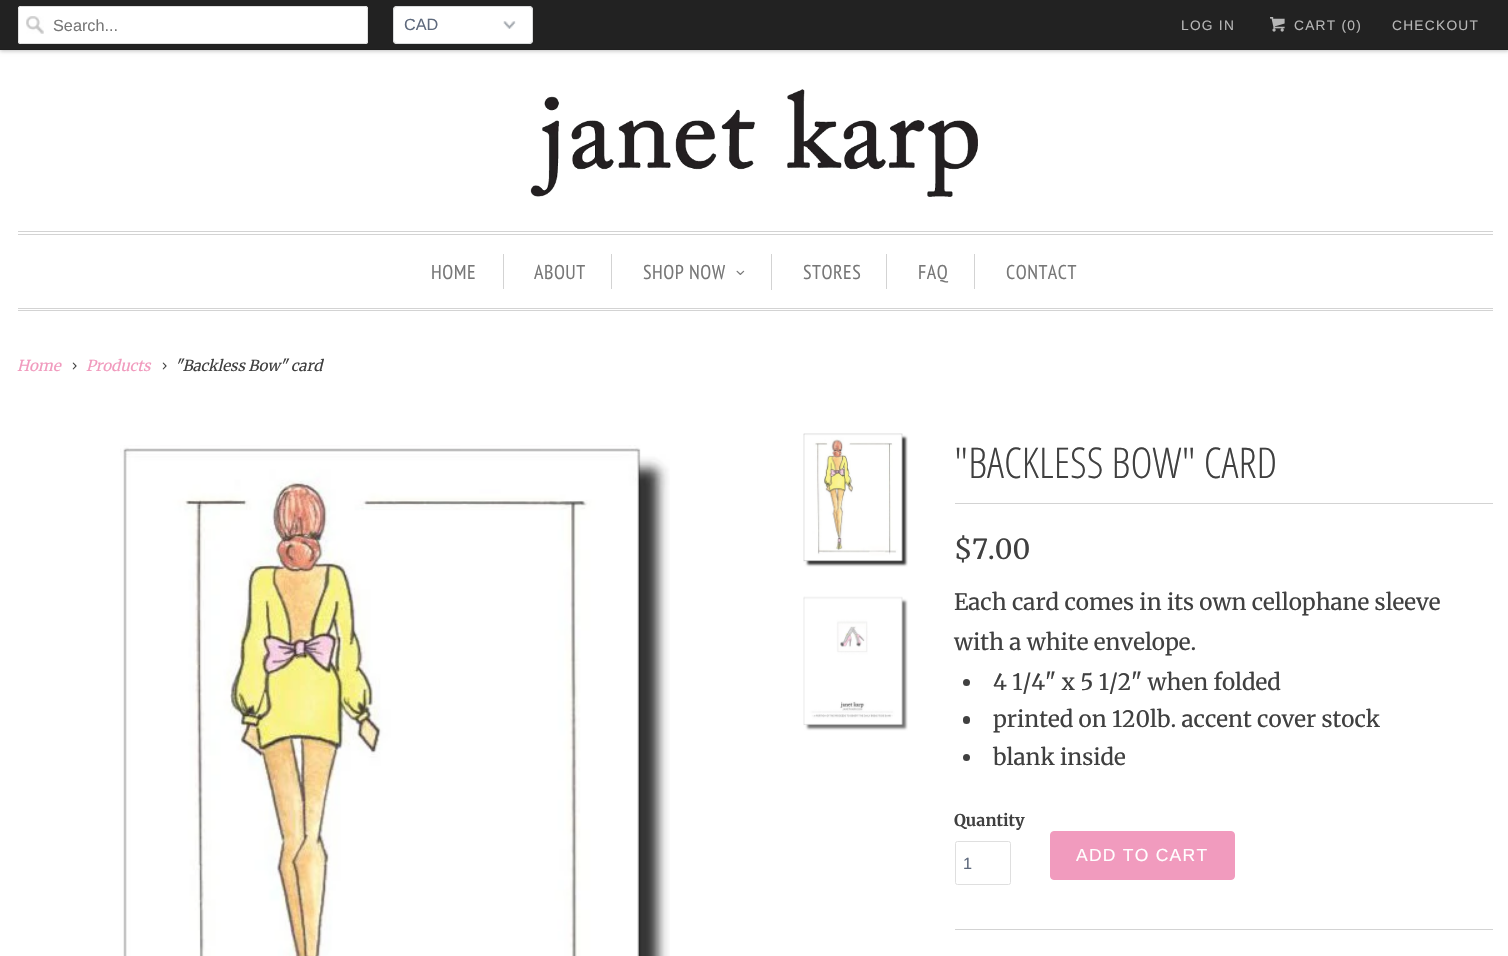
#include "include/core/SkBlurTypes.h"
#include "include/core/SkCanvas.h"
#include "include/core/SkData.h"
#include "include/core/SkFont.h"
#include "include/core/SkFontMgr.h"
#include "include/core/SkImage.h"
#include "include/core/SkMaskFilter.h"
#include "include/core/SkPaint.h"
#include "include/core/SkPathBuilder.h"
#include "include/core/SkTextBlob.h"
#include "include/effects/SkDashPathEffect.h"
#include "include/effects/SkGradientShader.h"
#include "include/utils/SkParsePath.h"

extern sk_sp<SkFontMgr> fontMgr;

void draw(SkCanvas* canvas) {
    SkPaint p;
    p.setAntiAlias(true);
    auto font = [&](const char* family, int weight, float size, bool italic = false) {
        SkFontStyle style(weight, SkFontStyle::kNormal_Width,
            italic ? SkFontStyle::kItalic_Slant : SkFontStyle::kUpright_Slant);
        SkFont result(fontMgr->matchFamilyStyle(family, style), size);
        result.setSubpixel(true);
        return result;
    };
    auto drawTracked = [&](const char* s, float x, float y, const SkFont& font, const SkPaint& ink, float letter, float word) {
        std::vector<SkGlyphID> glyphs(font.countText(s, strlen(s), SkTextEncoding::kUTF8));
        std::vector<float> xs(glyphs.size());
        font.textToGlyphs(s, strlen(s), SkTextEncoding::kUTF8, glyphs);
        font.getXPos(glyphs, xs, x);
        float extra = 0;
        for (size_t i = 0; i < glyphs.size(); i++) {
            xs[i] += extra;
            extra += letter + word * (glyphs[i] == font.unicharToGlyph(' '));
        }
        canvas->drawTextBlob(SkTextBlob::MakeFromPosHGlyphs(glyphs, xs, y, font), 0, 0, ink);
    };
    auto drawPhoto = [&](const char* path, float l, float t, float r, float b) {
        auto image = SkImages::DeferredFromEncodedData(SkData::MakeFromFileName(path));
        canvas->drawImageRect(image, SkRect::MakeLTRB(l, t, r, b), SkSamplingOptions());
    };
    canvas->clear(0xFFFFFFFF);
    p.setColor(0x40000000);
    p.setMaskFilter(SkMaskFilter::MakeBlur(kNormal_SkBlurStyle, 2));
    canvas->drawRect(SkRect::MakeLTRB(0, 1, 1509, 51), p);
    p.setMaskFilter(nullptr);
    p.setColor(0xFF222222);
    canvas->drawRect(SkRect::MakeLTRB(0, 0, 1508, 49), p);
    p.setColor(0xFF1F1F1F);
    canvas->drawRect(SkRect::MakeLTRB(0, 49, 1508, 50), p);
    p.setColor(0xFFFFFFFF);
    canvas->drawRoundRect(SkRect::MakeLTRB(18, 6, 368, 44), 2.5f, 2.5f, p);
    drawPhoto("media/1.png", 26, 16, 44, 34);
    p.setStyle(SkPaint::kStroke_Style);
    p.setStrokeWidth(1);
    p.setColor(0xFFDFDFDF);
    canvas->drawRoundRect(SkRect::MakeLTRB(18.5f, 6.5f, 367.5f, 43.5f), 2, 2, p);
    auto font1 = font("Liberation Sans", 400, 16.25f);
    p.setStyle(SkPaint::kFill_Style);
    p.setColor(0xFF777777);
    canvas->drawString("Search...", 53, 31, font1, p);
    p.setColor(0xFFFFFFFF);
    canvas->drawRoundRect(SkRect::MakeLTRB(393, 6, 533, 44), 4, 4, p);
    drawPhoto("media/2.png", 503, 21, 516, 29);
    p.setStyle(SkPaint::kStroke_Style);
    p.setColor(0xFFD9DBDC);
    canvas->drawRoundRect(SkRect::MakeLTRB(393.5f, 6.5f, 532.5f, 43.5f), 3.5f, 3.5f, p);
    p.setStyle(SkPaint::kFill_Style);
    p.setColor(0xFF5F6A7D);
    canvas->drawString("CAD", 404, 30, font1, p);
    auto font2 = font("Liberation Sans", 400, 13.75f);
    p.setColor(0xFFB6B6B6);
    drawTracked("LOG IN", 1181, 30, font2, p, 1.25f, 0);
    drawPhoto("media/3.png", 1270, 17, 1285, 32);
    drawTracked("CART (0)", 1294, 30, font2, p, 1.25f, 0);
    drawTracked("CHECKOUT", 1392, 30, font2, p, 1.25f, 0);
    drawPhoto("media/4.png", 530, 89, 978, 197);
    {
        const struct { float l, t, r, b; SkColor color; } items[] = {
            {18, 231, 1493, 232, 0xFFD3D3D3},
            {18, 234, 1493, 235, 0xFFD3D3D3},
            {18, 308, 1493, 309, 0xFFD3D3D3},
            {18, 310, 1493, 311, 0xFFD3D3D3},
            {503, 254, 504, 289, 0xFFD3D3D3},
        };
        for (auto [l, t, r, b, color] : items) {
            p.setColor(color);
            canvas->drawRect(SkRect::MakeLTRB(l, t, r, b), p);
        }
    }
    auto font3 = font("PT Sans Narrow", 400, 20);
    p.setColor(0xFF777777);
    drawTracked("HOME", 431, 279, font3, p, 0.5f, 0);
    p.setColor(0xFFD3D3D3);
    canvas->drawRect(SkRect::MakeLTRB(611, 254, 612, 289), p);
    p.setColor(0xFF777777);
    drawTracked("ABOUT", 534, 279, font3, p, 0.5f, 0);
    p.setColor(0xFFD3D3D3);
    canvas->drawRect(SkRect::MakeLTRB(771, 254, 772, 290), p);
    p.setColor(0xFF777777);
    drawTracked("SHOP NOW", 643, 279, font3, p, 0.5f, 0);
    drawPhoto("media/5.png", 736, 270, 745, 275);
    p.setColor(0xFFD3D3D3);
    canvas->drawRect(SkRect::MakeLTRB(886, 254, 887, 289), p);
    p.setColor(0xFF777777);
    drawTracked("STORES", 803, 279, font3, p, 0.5f, 0);
    p.setColor(0xFFD3D3D3);
    canvas->drawRect(SkRect::MakeLTRB(974, 254, 975, 289), p);
    p.setColor(0xFF777777);
    drawTracked("FAQ", 918, 279, font3, p, 0.5f, 0);
    drawTracked("CONTACT", 1006, 279, font3, p, 0.5f, 0);
    auto font4 = font("Merriweather", 400, 15, true);
    p.setColor(0xFFF19BBE);
    canvas->drawString("Home", 17, 371, font4, p);
    drawPhoto("media/6.png", 72, 362, 77, 370);
    canvas->drawString("Products", 86, 371, font4, p);
    drawPhoto("media/6.png", 162, 362, 167, 370);
    p.setColor(0xFF404040);
    canvas->drawString("\"Backless Bow\" card", 175, 371, font4, p);
    drawPhoto("media/7.png", 120, 445, 670, 956);
    drawPhoto("media/8.png", 803, 433, 908, 567);
    drawPhoto("media/9.png", 803, 596, 908, 731);
    p.setColor(0xFFD3D3D3);
    canvas->drawRect(SkRect::MakeLTRB(955, 503, 1493, 504), p);
    auto font5 = font("Open Sans Condensed", 300, 42.5f);
    p.setColor(0xFF404040);
    canvas->drawString("\"BACKLESS BOW\" CARD", 954, 478, font5, p);
    auto font6 = font("Merriweather", 400, 27.5f);
    canvas->drawString("$7.00", 954, 559, font6, p);
    auto font7 = font("Merriweather", 400, 22.5f);
    canvas->drawString("Each card comes in its own cellophane sleeve", 954, 610, font7, p);
    canvas->drawString("with a white envelope.", 954, 650, font7, p);
    canvas->drawCircle(966.5f, 682.5f, 3.5f, p);
    canvas->drawString("4 1/4\" x 5 1/2\" when folded", 993, 690, font7, p);
    canvas->drawRoundRect(SkRect::MakeLTRB(963, 716, 970, 724), 3.5f, 3.5f, p);
    canvas->drawString("printed on 120lb. accent cover stock", 993, 727, font7, p);
    canvas->drawCircle(966.5f, 757.5f, 3.5f, p);
    canvas->drawString("blank inside", 993, 765, font7, p);
    auto font8 = font("Merriweather", 700, 16.25f);
    canvas->drawString("Quantity", 954, 826, font8, p);
    p.setStyle(SkPaint::kStroke_Style);
    p.setColor(0xFFDFDFDF);
    canvas->drawRoundRect(SkRect::MakeLTRB(955.5f, 841.5f, 1010.5f, 884.5f), 2, 2, p);
    p.setStyle(SkPaint::kFill_Style);
    p.setColor(0xFF5F6A7D);
    canvas->drawString("1", 963, 869, font1, p);
    p.setColor(0xFFF19BBE);
    canvas->drawRoundRect(SkRect::MakeLTRB(1050.5f, 831.5f, 1234.5f, 879.5f), 3.5f, 3.5f, p);
    p.setStyle(SkPaint::kStroke_Style);
    canvas->drawRoundRect(SkRect::MakeLTRB(1050.5f, 831.5f, 1234.5f, 879.5f), 3.5f, 3.5f, p);
    auto font9 = font("Liberation Sans", 400, 17.5f);
    p.setStyle(SkPaint::kFill_Style);
    p.setColor(0xFFFFFFFF);
    drawTracked("ADD TO CART", 1076, 861, font9, p, 1.25f, 0);
    p.setColor(0xFFD3D3D3);
    canvas->drawRect(SkRect::MakeLTRB(955, 929, 1493, 930), p);
}
